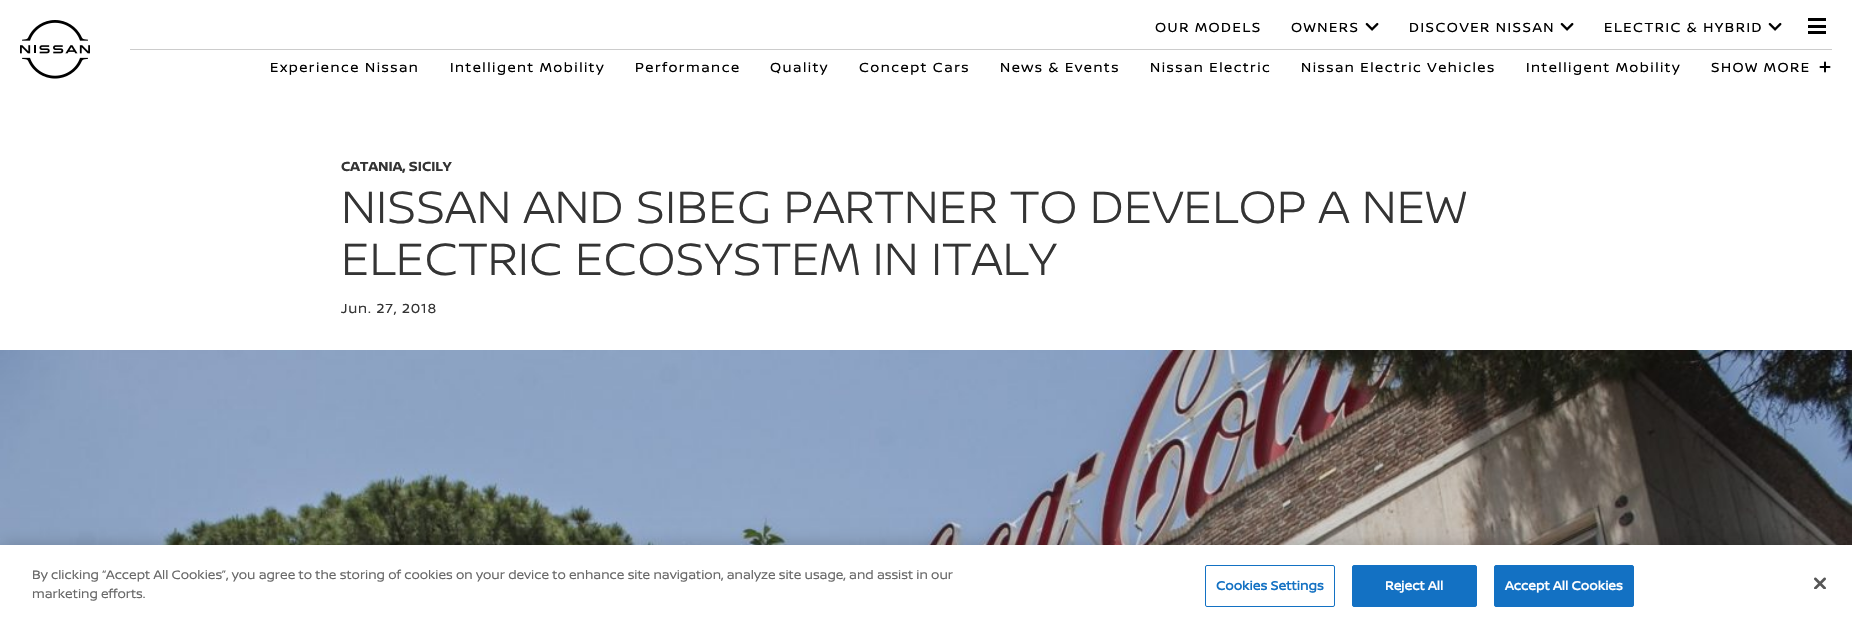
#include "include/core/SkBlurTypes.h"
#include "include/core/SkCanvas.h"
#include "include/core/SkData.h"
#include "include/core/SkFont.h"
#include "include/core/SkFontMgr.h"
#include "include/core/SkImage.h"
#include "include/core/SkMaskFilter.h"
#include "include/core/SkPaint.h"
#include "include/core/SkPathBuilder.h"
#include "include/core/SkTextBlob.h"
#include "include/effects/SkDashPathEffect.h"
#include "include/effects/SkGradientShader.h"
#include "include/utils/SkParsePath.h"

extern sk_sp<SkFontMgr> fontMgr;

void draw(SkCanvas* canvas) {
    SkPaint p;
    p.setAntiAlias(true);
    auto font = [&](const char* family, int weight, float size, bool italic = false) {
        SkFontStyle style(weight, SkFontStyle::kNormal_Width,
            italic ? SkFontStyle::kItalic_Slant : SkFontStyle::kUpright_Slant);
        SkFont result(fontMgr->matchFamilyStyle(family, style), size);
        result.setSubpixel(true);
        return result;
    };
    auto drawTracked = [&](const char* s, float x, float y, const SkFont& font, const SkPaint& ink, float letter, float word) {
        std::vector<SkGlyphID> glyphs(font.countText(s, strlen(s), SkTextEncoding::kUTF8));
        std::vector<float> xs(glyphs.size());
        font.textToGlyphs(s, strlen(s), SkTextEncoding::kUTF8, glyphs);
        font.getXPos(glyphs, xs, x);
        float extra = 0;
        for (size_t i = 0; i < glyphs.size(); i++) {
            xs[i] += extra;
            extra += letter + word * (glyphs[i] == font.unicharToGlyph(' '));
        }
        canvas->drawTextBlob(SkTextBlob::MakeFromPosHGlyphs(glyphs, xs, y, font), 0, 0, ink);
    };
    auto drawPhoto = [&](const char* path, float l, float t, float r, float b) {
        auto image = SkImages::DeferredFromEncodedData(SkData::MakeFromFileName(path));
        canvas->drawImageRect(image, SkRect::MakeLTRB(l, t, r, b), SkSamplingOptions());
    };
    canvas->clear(0xFFFFFFFF);
    drawPhoto("media/1.png", 20, 20, 90, 79);
    auto font1 = font("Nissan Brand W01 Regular", 400, 14);
    p.setColor(0xFF000000);
    drawTracked("OUR MODELS", 1155, 32, font1, p, 1.5f, 0);
    drawTracked("OWNERS", 1291, 32, font1, p, 1.5f, 0);
    drawPhoto("media/2.png", 1365, 22, 1379, 31);
    drawTracked("DISCOVER NISSAN", 1409, 32, font1, p, 1.5f, 0);
    drawPhoto("media/2.png", 1560, 22, 1574, 31);
    drawTracked("ELECTRIC & HYBRID", 1604, 32, font1, p, 1.5f, 0);
    drawPhoto("media/2.png", 1768, 22, 1782, 31);
    {
        const struct { float l, t, r, b; SkColor color; } items[] = {
            {1808, 18, 1826, 21, 0xFF000000},
            {1808, 25, 1826, 28, 0xFF000000},
            {1808, 31, 1826, 34, 0xFF000000},
            {130, 49, 1832, 50, 0xFFCCCCCC},
        };
        for (auto [l, t, r, b, color] : items) {
            p.setColor(color);
            canvas->drawRect(SkRect::MakeLTRB(l, t, r, b), p);
        }
    }
    p.setColor(0xFF000000);
    {
        const struct { const char* s; float x, y; } items[] = {
            {"Experience Nissan", 270, 72},
            {"Intelligent Mobility", 450, 72},
            {"Performance", 635, 72},
            {"Quality", 770, 72},
            {"Concept Cars", 859, 72},
            {"News & Events", 1000, 72},
            {"Nissan Electric", 1150, 72},
            {"Nissan Electric Vehicles", 1301, 72},
            {"Intelligent Mobility", 1526, 72},
            {"SHOW MORE", 1711, 72},
        };
        for (auto [s, x, y] : items) {
            drawTracked(s, x, y, font1, p, 1.5f, 0);
        }
    }
    drawPhoto("media/3.png", 1819, 61, 1831, 73);
    auto font2 = font("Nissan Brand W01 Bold", 700, 14);
    p.setColor(0xFF343434);
    canvas->drawString("CATANIA, SICILY", 341, 171, font2, p);
    auto font3 = font("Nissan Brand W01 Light", 300, 48);
    drawTracked("NISSAN AND SIBEG PARTNER TO DEVELOP A NEW", 341, 223, font3, p, 0.1f, 0);
    drawTracked("ELECTRIC ECOSYSTEM IN ITALY", 341, 275, font3, p, 0.1f, 0);
    drawTracked("Jun. 27, 2018", 341, 313, font1, p, 0.9f, 0);
    drawPhoto("media/4.png", 0, 350, 1852, 545);
    p.setColor(0x33000000);
    p.setMaskFilter(SkMaskFilter::MakeBlur(kNormal_SkBlurStyle, 9));
    canvas->drawRect(SkRect::MakeLTRB(0, 545, 1852, 627), p);
    p.setMaskFilter(nullptr);
    p.setColor(0xFFFFFFFF);
    canvas->drawRect(SkRect::MakeLTRB(0, 545, 1852, 627), p);
    auto font4 = font("Nissan Brand W01 Regular", 400, 13);
    p.setColor(0xFF696969);
    canvas->drawString("By clicking “Accept All Cookies”, you agree to the storing of cookies on your device to enhance site navigation, analyze site usage, and assist in our", 32, 579, font4, p);
    canvas->drawString("marketing efforts.", 32, 598, font4, p);
    p.setStyle(SkPaint::kStroke_Style);
    p.setStrokeWidth(1);
    p.setColor(0xFF1371C3);
    canvas->drawRoundRect(SkRect::MakeLTRB(1205.5f, 565.5f, 1334.5f, 606.5f), 1.5f, 1.5f, p);
    auto font5 = font("Nissan Brand W01 Regular", 700, 13);
    p.setStyle(SkPaint::kFill_Style);
    drawTracked("Cookies Settings", 1216, 590, font5, p, 0.1f, 0);
    canvas->drawRoundRect(SkRect::MakeLTRB(1352.5f, 565.5f, 1476.5f, 606.5f), 1.5f, 1.5f, p);
    p.setStyle(SkPaint::kStroke_Style);
    canvas->drawRoundRect(SkRect::MakeLTRB(1352.5f, 565.5f, 1476.5f, 606.5f), 1.5f, 1.5f, p);
    p.setStyle(SkPaint::kFill_Style);
    p.setColor(0xFFFFFFFF);
    drawTracked("Reject All", 1385, 590, font5, p, 0.1f, 0);
    p.setColor(0xFF1371C3);
    canvas->drawRoundRect(SkRect::MakeLTRB(1494.5f, 565.5f, 1633.5f, 606.5f), 1.5f, 1.5f, p);
    p.setStyle(SkPaint::kStroke_Style);
    canvas->drawRoundRect(SkRect::MakeLTRB(1494.5f, 565.5f, 1633.5f, 606.5f), 1.5f, 1.5f, p);
    p.setStyle(SkPaint::kFill_Style);
    p.setColor(0xFFFFFFFF);
    drawTracked("Accept All Cookies", 1505, 590, font5, p, 0.1f, 0);
    drawPhoto("media/5.png", 1814, 577, 1826, 589);
}
